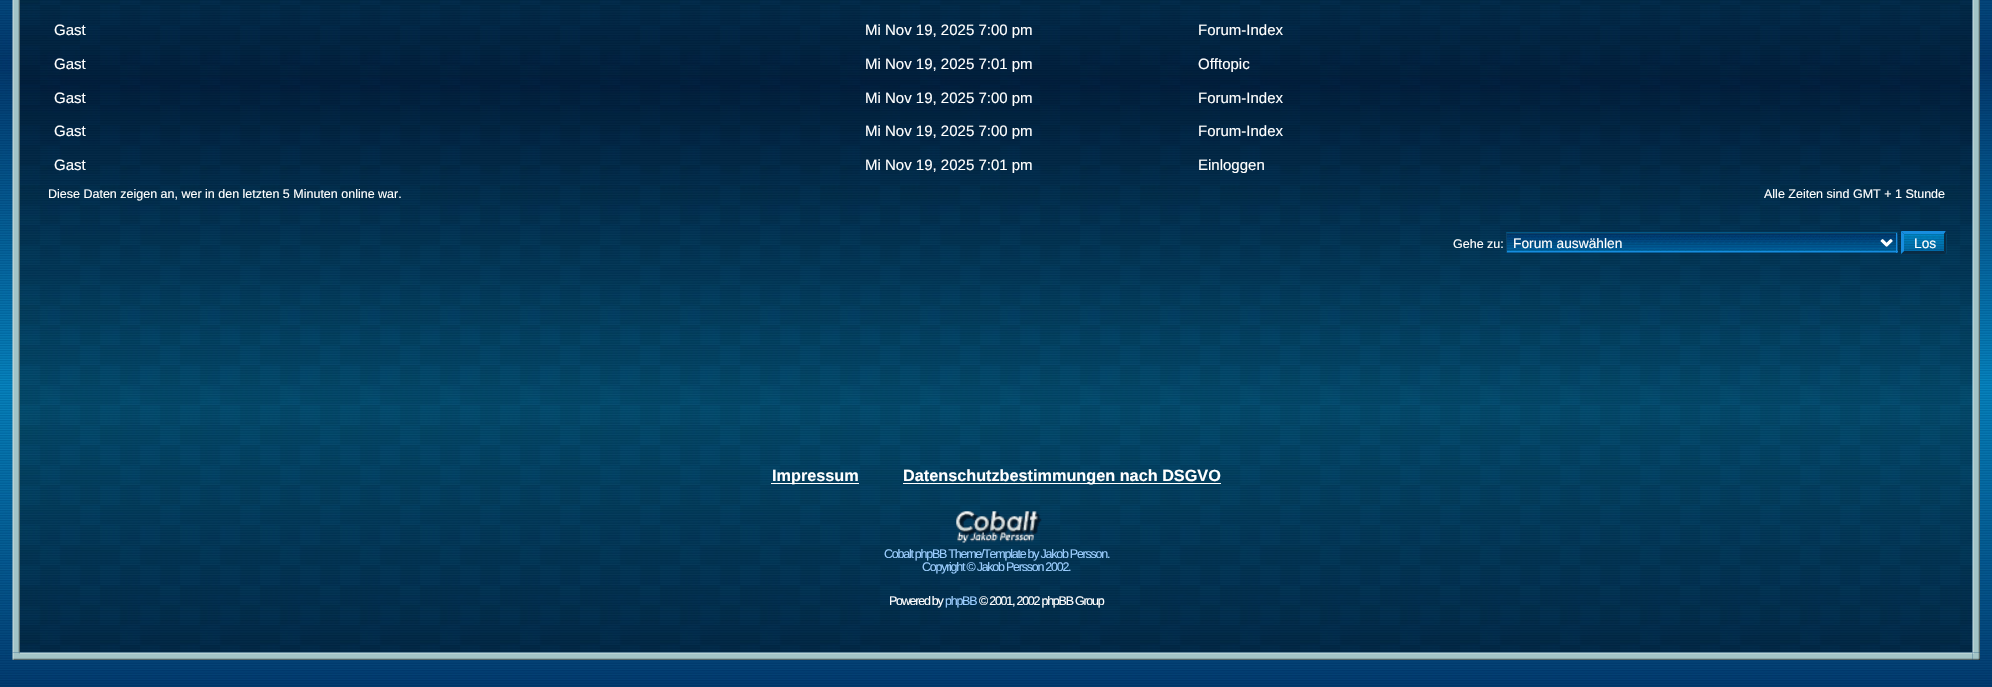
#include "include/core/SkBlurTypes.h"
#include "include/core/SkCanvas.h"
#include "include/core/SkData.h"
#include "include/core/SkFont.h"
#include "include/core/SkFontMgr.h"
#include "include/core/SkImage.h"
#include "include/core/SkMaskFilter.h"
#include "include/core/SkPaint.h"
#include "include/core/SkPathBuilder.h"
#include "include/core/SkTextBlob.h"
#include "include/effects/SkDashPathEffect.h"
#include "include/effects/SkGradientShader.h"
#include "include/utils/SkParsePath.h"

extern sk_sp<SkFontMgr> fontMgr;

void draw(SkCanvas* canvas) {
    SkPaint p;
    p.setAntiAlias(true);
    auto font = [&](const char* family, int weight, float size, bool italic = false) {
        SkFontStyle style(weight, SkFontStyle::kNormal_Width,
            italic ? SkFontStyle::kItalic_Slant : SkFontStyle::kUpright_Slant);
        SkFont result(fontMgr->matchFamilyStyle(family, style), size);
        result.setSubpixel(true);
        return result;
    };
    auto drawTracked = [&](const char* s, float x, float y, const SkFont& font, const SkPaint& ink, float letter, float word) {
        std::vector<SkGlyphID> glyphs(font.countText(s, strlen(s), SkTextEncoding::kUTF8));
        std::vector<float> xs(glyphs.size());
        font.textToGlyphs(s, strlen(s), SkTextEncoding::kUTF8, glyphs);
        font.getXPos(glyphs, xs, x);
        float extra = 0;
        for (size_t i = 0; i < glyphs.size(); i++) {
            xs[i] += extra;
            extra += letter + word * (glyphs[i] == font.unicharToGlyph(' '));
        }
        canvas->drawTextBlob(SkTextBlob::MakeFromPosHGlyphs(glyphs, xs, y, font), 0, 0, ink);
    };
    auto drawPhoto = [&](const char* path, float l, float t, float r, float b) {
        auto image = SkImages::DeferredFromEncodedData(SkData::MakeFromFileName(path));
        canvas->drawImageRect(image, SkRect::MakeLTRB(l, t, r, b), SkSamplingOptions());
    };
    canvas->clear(0xFFFFFFFF);
    drawPhoto("media/1.png", 0, 0, 1992, 687);
    drawPhoto("media/2.png", 12, 0, 20, 653);
    drawPhoto("media/3.png", 20, 0, 1973, 653);
    auto font1 = font("Liberation Sans", 400, 15);
    p.setColor(0xFFFFFFFF);
    {
        const struct { const char* s; float x, y; } items[] = {
            {"Gast", 54, 35},
            {"Mi Nov 19, 2025 7:00 pm", 865, 35},
            {"Forum-Index", 1198, 35},
            {"Gast", 54, 69},
            {"Mi Nov 19, 2025 7:01 pm", 865, 69},
            {"Offtopic", 1198, 69},
            {"Gast", 54, 103},
            {"Mi Nov 19, 2025 7:00 pm", 865, 103},
            {"Forum-Index", 1198, 103},
            {"Gast", 54, 136},
            {"Mi Nov 19, 2025 7:00 pm", 865, 136},
            {"Forum-Index", 1198, 136},
            {"Gast", 54, 170},
            {"Mi Nov 19, 2025 7:01 pm", 865, 170},
            {"Einloggen", 1198, 170},
        };
        for (auto [s, x, y] : items) {
            canvas->drawString(s, x, y, font1, p);
        }
    }
    auto font2 = font("Liberation Sans", 400, 12.5f);
    {
        const struct { const char* s; float x, y; } items[] = {
            {"Diese Daten zeigen an, wer in den letzten 5 Minuten online war.", 48, 198},
            {"Alle Zeiten sind GMT + 1 Stunde", 1764, 198},
            {"Gehe zu:", 1453, 248},
        };
        for (auto [s, x, y] : items) {
            canvas->drawString(s, x, y, font2, p);
        }
    }
    p.setColor(0xFF13619F);
    canvas->drawRect(SkRect::MakeLTRB(1507, 234, 1898, 253), p);
    drawPhoto("media/4.png", 1506, 232, 1898, 253);
    {
        const struct { float l, t, r, b; SkColor color; } items[] = {
            {1506, 233, 1898, 234, 0xFF0D4267},
            {1896, 233, 1897, 253, 0xFF178DDF},
            {1506, 251, 1898, 252, 0xFF178DDF},
            {1506, 233, 1507, 253, 0xFF0D4267},
        };
        for (auto [l, t, r, b, color] : items) {
            p.setColor(color);
            canvas->drawRect(SkRect::MakeLTRB(l, t, r, b), p);
        }
    }
    p.setStyle(SkPaint::kStroke_Style);
    p.setStrokeWidth(2.5f);
    p.setColor(0xFFFFFFFF);
    canvas->drawPath(SkPathBuilder().moveTo(1882, 240).lineTo(1887, 245).lineTo(1892, 240).detach(), p);
    auto font3 = font("Liberation Sans", 400, 13.75f);
    p.setStyle(SkPaint::kFill_Style);
    canvas->drawString("Forum auswählen", 1513, 248, font3, p);
    drawPhoto("media/5.png", 1901, 231, 1947, 254);
    p.setColor(0xFF178DDF);
    canvas->drawPath(SkPathBuilder().moveTo(1901, 231).lineTo(1946, 231).lineTo(1944, 234).lineTo(1904, 234).close().detach(), p);
    p.setColor(0xFF092C45);
    canvas->drawPath(SkPathBuilder().moveTo(1946, 231).lineTo(1946, 254).lineTo(1944, 251).lineTo(1944, 234).close().detach(), p);
    canvas->drawPath(SkPathBuilder().moveTo(1946, 254).lineTo(1901, 254).lineTo(1904, 251).lineTo(1944, 251).close().detach(), p);
    p.setColor(0xFF178DDF);
    canvas->drawPath(SkPathBuilder().moveTo(1901, 254).lineTo(1901, 231).lineTo(1904, 234).lineTo(1904, 251).close().detach(), p);
    p.setColor(0xFFFFFFFF);
    canvas->drawString("Los", 1914, 248, font3, p);
    canvas->drawRect(SkRect::MakeLTRB(771, 483, 859, 484), p);
    auto font4 = font("Liberation Sans", 700, 16.25f);
    canvas->drawString("Impressum", 772, 481, font4, p);
    canvas->drawRect(SkRect::MakeLTRB(903, 483, 1221, 484), p);
    canvas->drawString("Datenschutzbestimmungen nach DSGVO", 903, 481, font4, p);
    drawPhoto("media/6.png", 956, 511, 1042, 543);
    p.setColor(0xFF9CCEFF);
    drawTracked("Cobalt phpBB Theme/Template by Jakob Persson.", 884, 558, font2, p, -1.25f, 0);
    drawTracked("Copyright © Jakob Persson 2002.", 922, 571, font2, p, -1.25f, 0);
    p.setColor(0xFFFFFFFF);
    drawTracked("Powered by", 889, 605, font2, p, -1.25f, 0);
    p.setColor(0xFF9CCEFF);
    drawTracked("phpBB", 945, 605, font2, p, -1.25f, 0);
    p.setColor(0xFFFFFFFF);
    drawTracked("© 2001, 2002 phpBB Group", 979, 605, font2, p, -1.25f, 0);
    drawPhoto("media/7.png", 1972, 0, 1980, 653);
    drawPhoto("media/8.png", 12, 652, 20, 660);
    drawPhoto("media/9.png", 20, 652, 1973, 660);
    drawPhoto("media/10.png", 1972, 652, 1980, 660);
}
